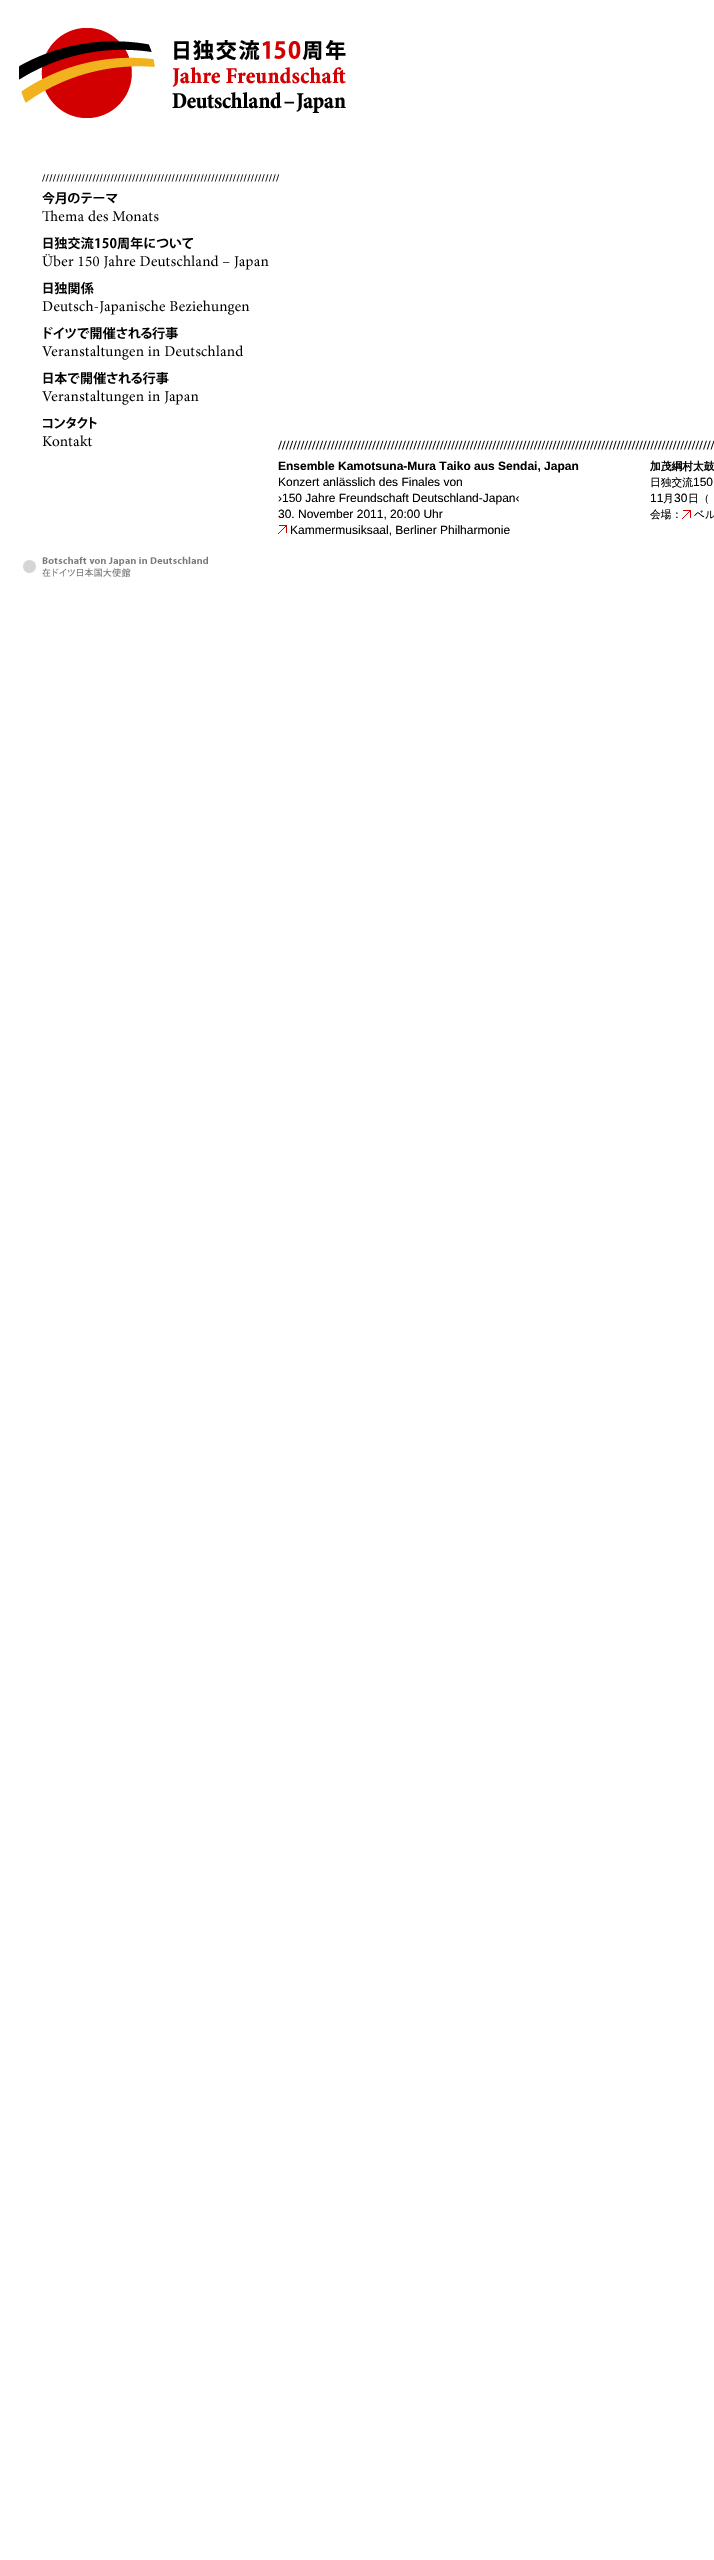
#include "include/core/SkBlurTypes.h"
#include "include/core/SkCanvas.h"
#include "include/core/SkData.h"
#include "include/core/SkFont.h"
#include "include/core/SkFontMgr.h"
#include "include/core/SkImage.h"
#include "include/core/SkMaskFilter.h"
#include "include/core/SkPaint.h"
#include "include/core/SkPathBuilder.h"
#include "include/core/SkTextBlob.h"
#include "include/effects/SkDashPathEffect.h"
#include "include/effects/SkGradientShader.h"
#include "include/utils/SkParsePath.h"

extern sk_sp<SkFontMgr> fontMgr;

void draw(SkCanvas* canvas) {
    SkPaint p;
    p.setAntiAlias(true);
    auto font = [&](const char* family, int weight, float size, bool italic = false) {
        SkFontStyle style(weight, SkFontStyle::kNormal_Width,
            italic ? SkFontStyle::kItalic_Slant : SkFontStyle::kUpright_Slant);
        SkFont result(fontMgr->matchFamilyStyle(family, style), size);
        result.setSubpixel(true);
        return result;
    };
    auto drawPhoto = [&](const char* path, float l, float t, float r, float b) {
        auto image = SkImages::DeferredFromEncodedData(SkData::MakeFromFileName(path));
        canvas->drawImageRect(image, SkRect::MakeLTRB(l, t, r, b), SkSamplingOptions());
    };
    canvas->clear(0xFFFFFFFF);
    drawPhoto("media/1.png", 19, 28, 346, 118);
    drawPhoto("media/2.png", 42, 174, 279, 182);
    drawPhoto("media/3.png", 42, 192, 159, 222);
    drawPhoto("media/4.png", 42, 237, 269, 270);
    drawPhoto("media/5.png", 42, 282, 250, 315);
    drawPhoto("media/6.png", 42, 327, 243, 360);
    drawPhoto("media/7.png", 42, 372, 199, 405);
    drawPhoto("media/8.png", 42, 417, 97, 447);
    drawPhoto("media/9.png", 278, 440, 714, 450);
    auto font1 = font("Liberation Sans", 700, 12);
    p.setColor(0xFF000000);
    canvas->drawString("Ensemble Kamotsuna-Mura Taiko aus Sendai, Japan", 278, 470, font1, p);
    auto font2 = font("Liberation Sans", 400, 12);
    {
        const struct { const char* s; float x, y; } items[] = {
            {"Konzert anlässlich des Finales von", 278, 486},
            {"›150 Jahre Freundschaft Deutschland-Japan‹", 278, 502},
            {"30. November 2011, 20:00 Uhr", 278, 518},
        };
        for (auto [s, x, y] : items) {
            canvas->drawString(s, x, y, font2, p);
        }
    }
    drawPhoto("media/10.png", 278, 525, 287, 534);
    canvas->drawString("Kammermusiksaal, Berliner Philharmonie", 290, 534, font2, p);
    auto font3 = font("WenQuanYi Zen Hei", 700, 10.75f);
    canvas->drawString("加茂綱村太鼓", 650, 470, font3, p);
    auto font4 = font("WenQuanYi Zen Hei", 500, 10.75f);
    canvas->drawString("日独交流", 650, 486, font4, p);
    canvas->drawString("150", 693, 486, font2, p);
    canvas->drawString("11", 650, 502, font2, p);
    canvas->drawString("月", 663, 502, font4, p);
    canvas->drawString("30", 674, 502, font2, p);
    canvas->drawString("日（", 688, 502, font4, p);
    canvas->drawString("会場：", 650, 518, font4, p);
    drawPhoto("media/10.png", 682, 510, 691, 519);
    canvas->drawString("ベル", 694, 518, font4, p);
    drawPhoto("media/11.png", 23, 556, 208, 577);
}
